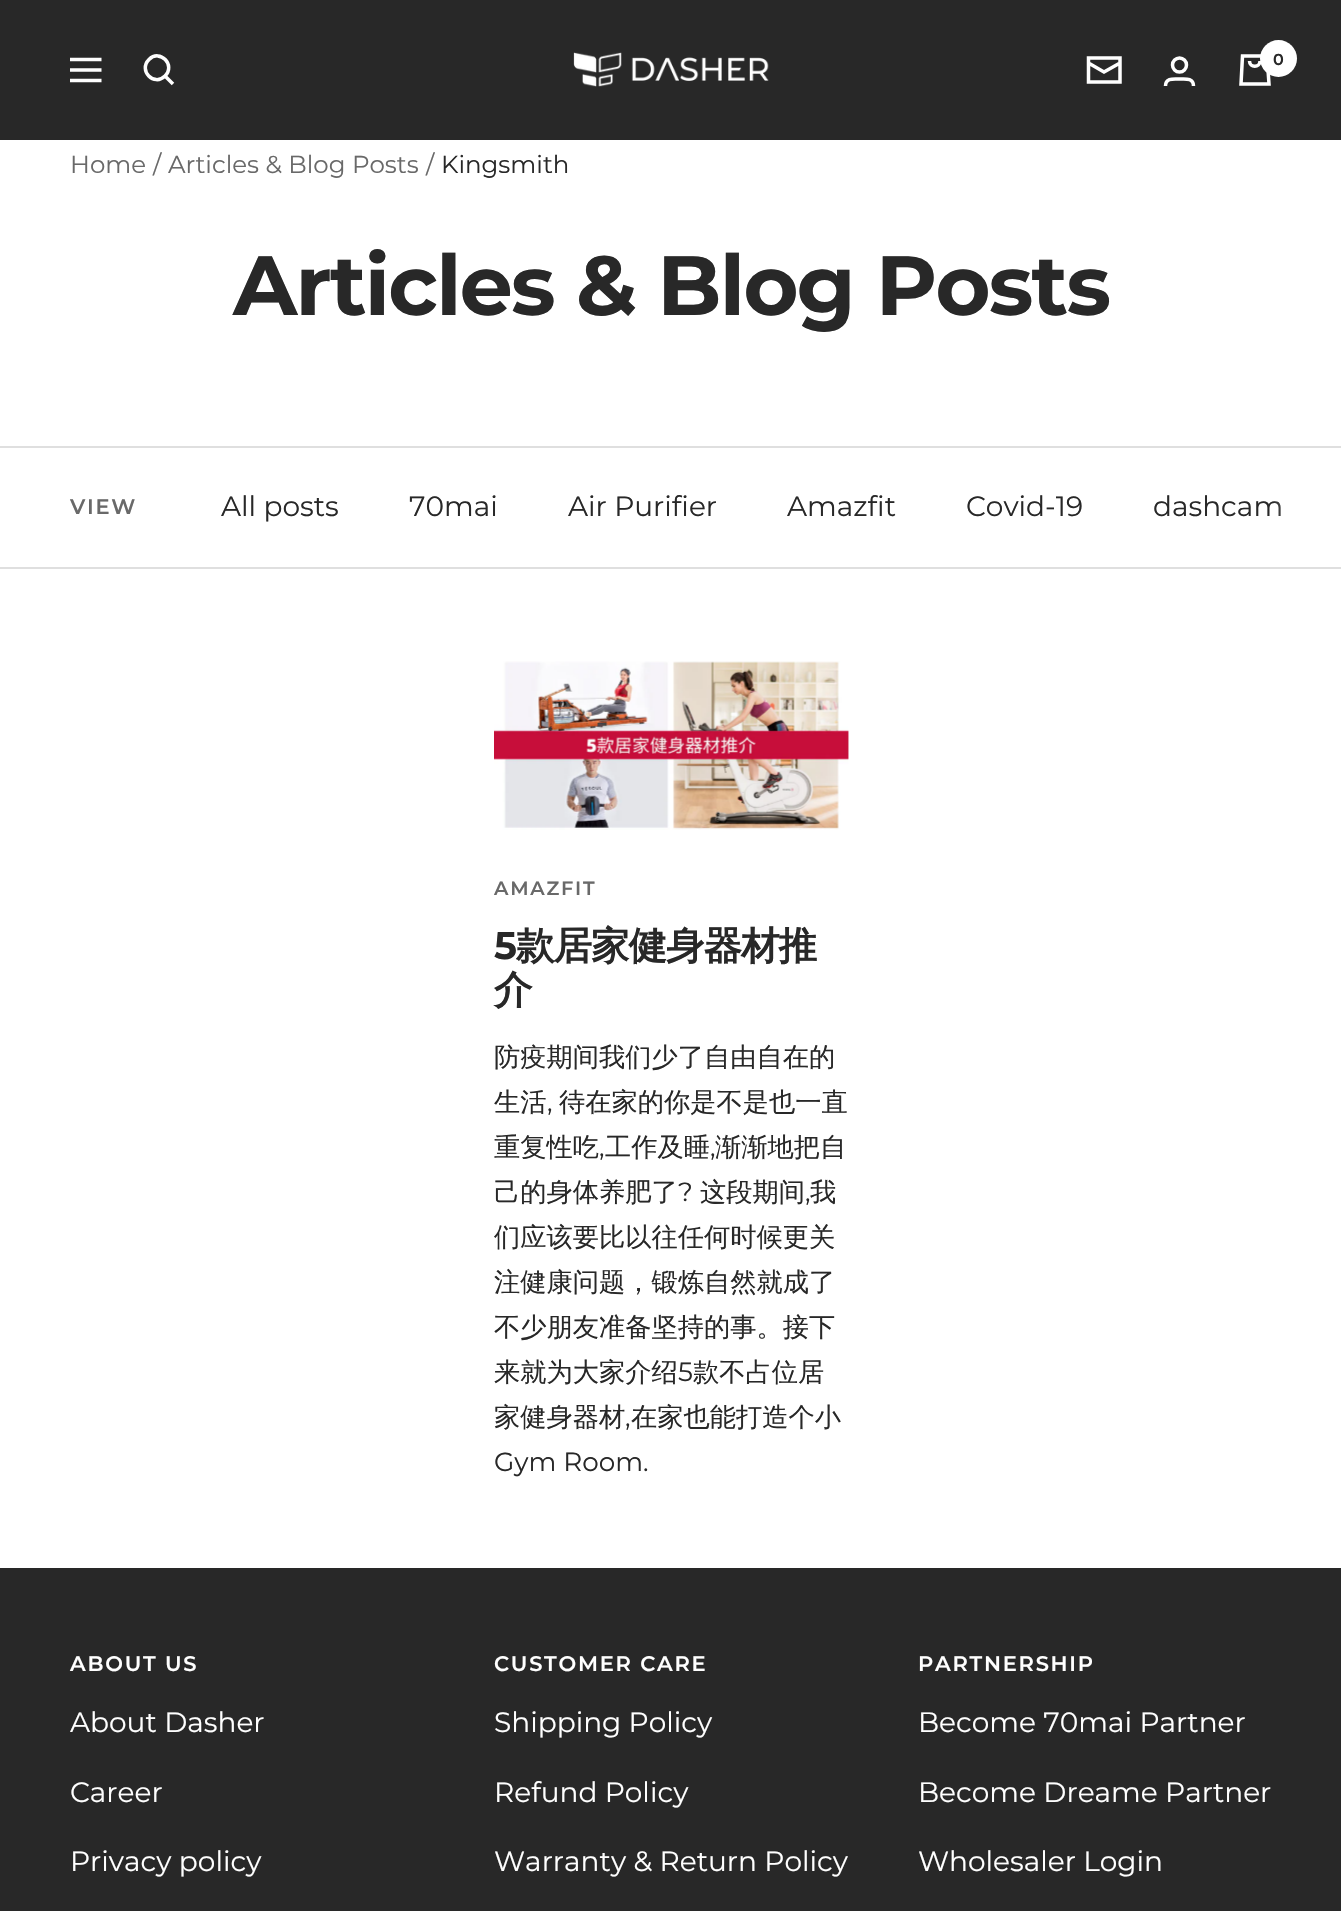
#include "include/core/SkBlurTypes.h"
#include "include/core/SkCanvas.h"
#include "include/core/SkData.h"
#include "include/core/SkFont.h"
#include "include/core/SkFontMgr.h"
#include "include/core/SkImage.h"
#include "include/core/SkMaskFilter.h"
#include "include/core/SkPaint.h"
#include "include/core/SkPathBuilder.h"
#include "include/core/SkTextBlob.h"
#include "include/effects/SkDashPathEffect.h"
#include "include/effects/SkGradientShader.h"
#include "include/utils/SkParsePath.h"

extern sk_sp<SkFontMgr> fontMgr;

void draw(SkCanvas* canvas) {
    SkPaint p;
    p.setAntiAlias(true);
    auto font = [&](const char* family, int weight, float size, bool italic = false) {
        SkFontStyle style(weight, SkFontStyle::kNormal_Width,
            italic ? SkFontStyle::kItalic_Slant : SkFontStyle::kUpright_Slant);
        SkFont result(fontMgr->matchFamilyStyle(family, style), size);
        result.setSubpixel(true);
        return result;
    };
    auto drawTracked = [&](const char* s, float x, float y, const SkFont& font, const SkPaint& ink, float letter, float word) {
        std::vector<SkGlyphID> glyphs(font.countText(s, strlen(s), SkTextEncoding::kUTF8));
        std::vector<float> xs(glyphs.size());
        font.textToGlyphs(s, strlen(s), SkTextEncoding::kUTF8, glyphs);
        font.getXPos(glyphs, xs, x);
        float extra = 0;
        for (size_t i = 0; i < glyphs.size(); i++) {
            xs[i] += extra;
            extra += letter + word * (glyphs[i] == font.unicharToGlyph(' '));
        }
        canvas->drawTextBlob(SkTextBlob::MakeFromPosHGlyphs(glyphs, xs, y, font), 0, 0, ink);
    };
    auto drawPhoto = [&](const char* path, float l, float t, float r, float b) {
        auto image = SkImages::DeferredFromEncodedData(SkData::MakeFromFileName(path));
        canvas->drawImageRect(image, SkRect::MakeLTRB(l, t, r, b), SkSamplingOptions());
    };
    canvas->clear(0xFFFFFFFF);
    p.setColor(0xFF282828);
    canvas->drawRect(SkRect::MakeLTRB(0, 0, 1341, 140), p);
    p.setStyle(SkPaint::kStroke_Style);
    p.setStrokeWidth(3.5f);
    p.setColor(0xFFFFFFFF);
    canvas->drawPath(SkPathBuilder().moveTo(70, 59.5f).lineTo(101.5f, 59.5f).moveTo(70, 80.5f).lineTo(101.5f, 80.5f).close().moveTo(70, 70).lineTo(101.5f, 70).close().detach(), p);
    canvas->drawPath(SkPathBuilder().moveTo(165, 76).cubicTo(176, 65, 160, 48.5f, 149, 59.5f).cubicTo(138, 70.5f, 154, 87, 165, 76).close().moveTo(165, 76).lineTo(173, 84).detach(), p);
    drawPhoto("media/1.png", 573, 52, 769, 87);
    canvas->drawPath(SkPathBuilder().moveTo(1120, 63).lineTo(1104, 72).lineTo(1088.5f, 63).moveTo(1088.5f, 58).lineTo(1120, 58).lineTo(1120, 82).lineTo(1088.5f, 82).close().detach(), p);
    canvas->drawCircle(1179.5f, 65, 7, p);
    canvas->drawPath(SkPathBuilder().moveTo(1165.5f, 86).cubicTo(1165.5f, 77.5f, 1174, 79, 1179.5f, 79).cubicTo(1185, 79, 1193.5f, 77.5f, 1193.5f, 86).detach(), p);
    canvas->drawPath(SkPathBuilder().moveTo(1242.5f, 56).lineTo(1267, 56).lineTo(1269, 84).lineTo(1241, 84).close().moveTo(1249.5f, 61).cubicTo(1249.5f, 68, 1260, 68, 1260, 61).detach(), p);
    p.setStyle(SkPaint::kFill_Style);
    canvas->drawCircle(1278.5f, 58.5f, 18.5f, p);
    auto font1 = font("Montserrat", 600, 16);
    p.setColor(0xFF282828);
    canvas->drawString("0", 1273, 65, font1, p);
    auto font2 = font("Montserrat", 400, 24.5f);
    p.setColor(0xFF696969);
    {
        const struct { const char* s; float x, y; } items[] = {
            {"Home", 70, 173},
            {"/", 153, 173},
            {"Articles & Blog Posts", 168, 173},
            {"/", 426, 173},
        };
        for (auto [s, x, y] : items) {
            canvas->drawString(s, x, y, font2, p);
        }
    }
    p.setColor(0xFF282828);
    canvas->drawString("Kingsmith", 441, 173, font2, p);
    auto font3 = font("Montserrat", 700, 84);
    drawTracked("Articles & Blog Posts", 233, 315, font3, p, -1.75f, 0);
    p.setColor(0xFFDFDFDF);
    canvas->drawRect(SkRect::MakeLTRB(0, 446, 1341, 448), p);
    canvas->drawRect(SkRect::MakeLTRB(0, 567, 1341, 569), p);
    auto font4 = font("Montserrat", 600, 21);
    p.setColor(0xFF696969);
    drawTracked("VIEW", 70, 514, font4, p, 1.75f, 0);
    auto font5 = font("Montserrat", 400, 28);
    p.setColor(0xFF282828);
    {
        const struct { const char* s; float x, y; } items[] = {
            {"All posts", 221, 516},
            {"70mai", 409, 516},
            {"Air Purifier", 568, 516},
            {"Amazfit", 787, 516},
            {"Covid-19", 966, 516},
            {"dashcam", 1153, 516},
        };
        for (auto [s, x, y] : items) {
            canvas->drawString(s, x, y, font5, p);
        }
    }
    {
        const SkColor colors[] = {0xFFFFFFFF, 0x00FFFFFF};
        const float stops[] = {0, 1};
        const SkPoint ends[] = {{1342, 508}, {1272, 508}};
        p.setShader(SkGradientShader::MakeLinear(ends, colors, stops, 2, SkTileMode::kClamp));
        p.setAlpha(255);
    }
    canvas->drawRect(SkRect::MakeLTRB(1274, 501, 1281, 516), p);
    drawPhoto("media/2.png", 494, 661, 849, 830);
    auto font6 = font("Montserrat", 600, 19.25f);
    p.setShader(nullptr);
    p.setColor(0xFF696969);
    drawTracked("AMAZFIT", 494, 895, font6, p, 1.75f, 0);
    auto font7 = font("Montserrat", 700, 38.5f);
    p.setColor(0xFF282828);
    drawTracked("5", 494, 959, font7, p, -1, 0);
    auto font8 = font("WenQuanYi Zen Hei", 700, 38.5f);
    drawTracked("款居家健身器材推", 516, 959, font8, p, -1, 0);
    drawTracked("介", 494, 1003, font8, p, -1, 0);
    auto font9 = font("WenQuanYi Zen Hei", 500, 26.25f);
    canvas->drawString("防疫期间我们少了自由自在的", 494, 1066, font9, p);
    canvas->drawString("生活", 494, 1111, font9, p);
    auto font10 = font("Montserrat", 400, 26.25f);
    canvas->drawString(",", 547, 1111, font10, p);
    canvas->drawString("待在家的你是不是也一直", 559, 1111, font9, p);
    canvas->drawString("重复性吃", 494, 1156, font9, p);
    canvas->drawString(",", 599, 1156, font10, p);
    canvas->drawString("工作及睡", 605, 1156, font9, p);
    canvas->drawString(",", 710, 1156, font10, p);
    canvas->drawString("渐渐地把自", 715, 1156, font9, p);
    canvas->drawString("己的身体养肥了", 494, 1201, font9, p);
    canvas->drawString("?", 678, 1201, font10, p);
    canvas->drawString("这段期间", 700, 1201, font9, p);
    canvas->drawString(",", 805, 1201, font10, p);
    {
        const struct { const char* s; float x, y; } items[] = {
            {"我", 810, 1201},
            {"们应该要比以往任何时候更关", 494, 1246},
            {"注健康问题，锻炼自然就成了", 494, 1291},
            {"不少朋友准备坚持的事。接下", 494, 1336},
            {"来就为大家介绍", 494, 1381},
        };
        for (auto [s, x, y] : items) {
            canvas->drawString(s, x, y, font9, p);
        }
    }
    canvas->drawString("5", 678, 1381, font10, p);
    canvas->drawString("款不占位居", 693, 1381, font9, p);
    canvas->drawString("家健身器材", 494, 1426, font9, p);
    canvas->drawString(",", 625, 1426, font10, p);
    canvas->drawString("在家也能打造个小", 631, 1426, font9, p);
    canvas->drawString("Gym Room.", 494, 1471, font10, p);
    canvas->drawRect(SkRect::MakeLTRB(0, 1568, 1341, 1911), p);
    p.setColor(0xFFFFFFFF);
    drawTracked("ABOUT US", 70, 1671, font4, p, 1.75f, 0);
    {
        const struct { const char* s; float x, y; } items[] = {
            {"About Dasher", 70, 1732},
            {"Career", 70, 1802},
            {"Privacy policy", 70, 1871},
        };
        for (auto [s, x, y] : items) {
            canvas->drawString(s, x, y, font5, p);
        }
    }
    drawTracked("CUSTOMER CARE", 494, 1671, font4, p, 1.75f, 0);
    {
        const struct { const char* s; float x, y; } items[] = {
            {"Shipping Policy", 494, 1732},
            {"Refund Policy", 494, 1802},
            {"Warranty & Return Policy", 494, 1871},
        };
        for (auto [s, x, y] : items) {
            canvas->drawString(s, x, y, font5, p);
        }
    }
    drawTracked("PARTNERSHIP", 918, 1671, font4, p, 1.75f, 0);
    {
        const struct { const char* s; float x, y; } items[] = {
            {"Become 70mai Partner", 918, 1732},
            {"Become Dreame Partner", 918, 1802},
            {"Wholesaler Login", 918, 1871},
        };
        for (auto [s, x, y] : items) {
            canvas->drawString(s, x, y, font5, p);
        }
    }
}
